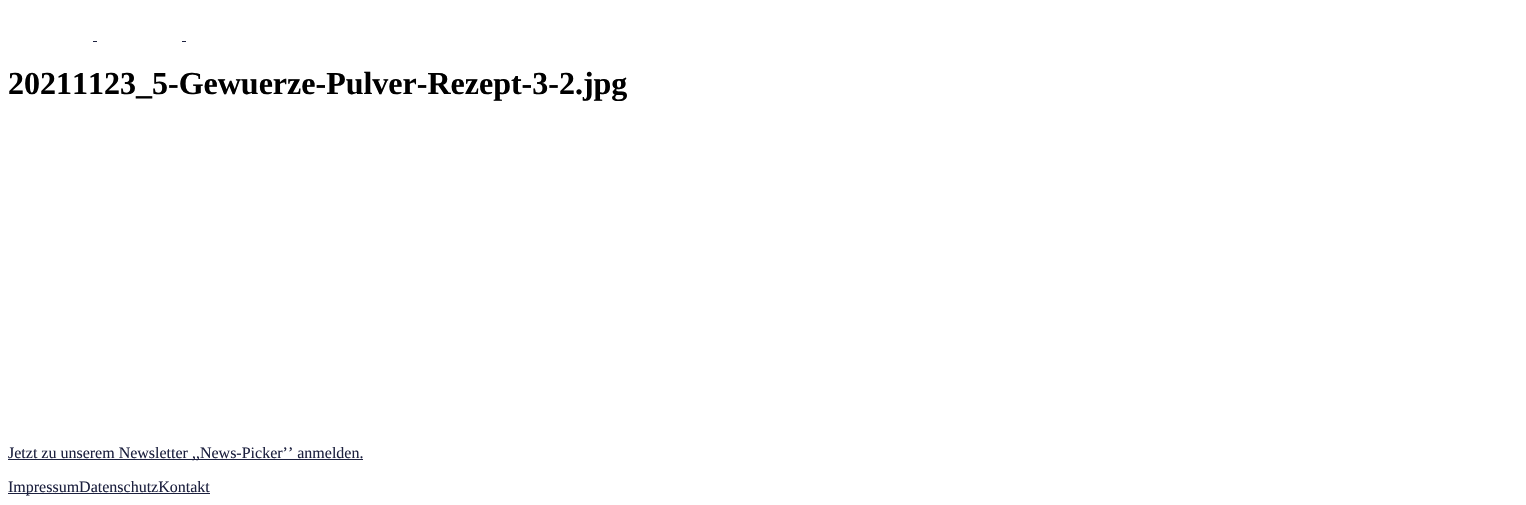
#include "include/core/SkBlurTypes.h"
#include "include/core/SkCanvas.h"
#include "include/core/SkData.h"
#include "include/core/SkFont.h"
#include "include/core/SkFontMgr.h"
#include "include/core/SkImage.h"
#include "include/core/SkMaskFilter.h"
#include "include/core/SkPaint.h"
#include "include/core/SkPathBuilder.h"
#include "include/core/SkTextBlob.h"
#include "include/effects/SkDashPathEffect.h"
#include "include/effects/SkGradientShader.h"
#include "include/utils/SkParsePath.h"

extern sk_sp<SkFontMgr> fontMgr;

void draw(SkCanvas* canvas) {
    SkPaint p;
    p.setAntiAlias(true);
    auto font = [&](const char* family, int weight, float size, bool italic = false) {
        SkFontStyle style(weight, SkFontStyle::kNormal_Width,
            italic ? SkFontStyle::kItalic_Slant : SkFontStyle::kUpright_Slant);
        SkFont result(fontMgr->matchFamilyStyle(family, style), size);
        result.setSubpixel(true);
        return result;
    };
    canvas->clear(0xFFFFFFFF);
    p.setColor(0xFF1D213F);
    canvas->drawRect(SkRect::MakeLTRB(93, 41, 97, 42), p);
    canvas->drawRect(SkRect::MakeLTRB(182, 41, 186, 42), p);
    auto font1 = font("Liberation Serif", 700, 32);
    p.setColor(0xFF000000);
    canvas->drawString("20211123_5-Gewuerze-Pulver-Rezept-3-2.jpg", 8, 94, font1, p);
    p.setColor(0xFF1D213F);
    canvas->drawRect(SkRect::MakeLTRB(8, 459, 363, 460), p);
    auto font2 = font("Liberation Serif", 400, 16);
    canvas->drawString("Jetzt zu unserem Newsletter ,,News-Picker’’ anmelden.", 8, 458, font2, p);
    canvas->drawRect(SkRect::MakeLTRB(8, 493, 210, 494), p);
    canvas->drawString("ImpressumDatenschutzKontakt", 8, 492, font2, p);
}
